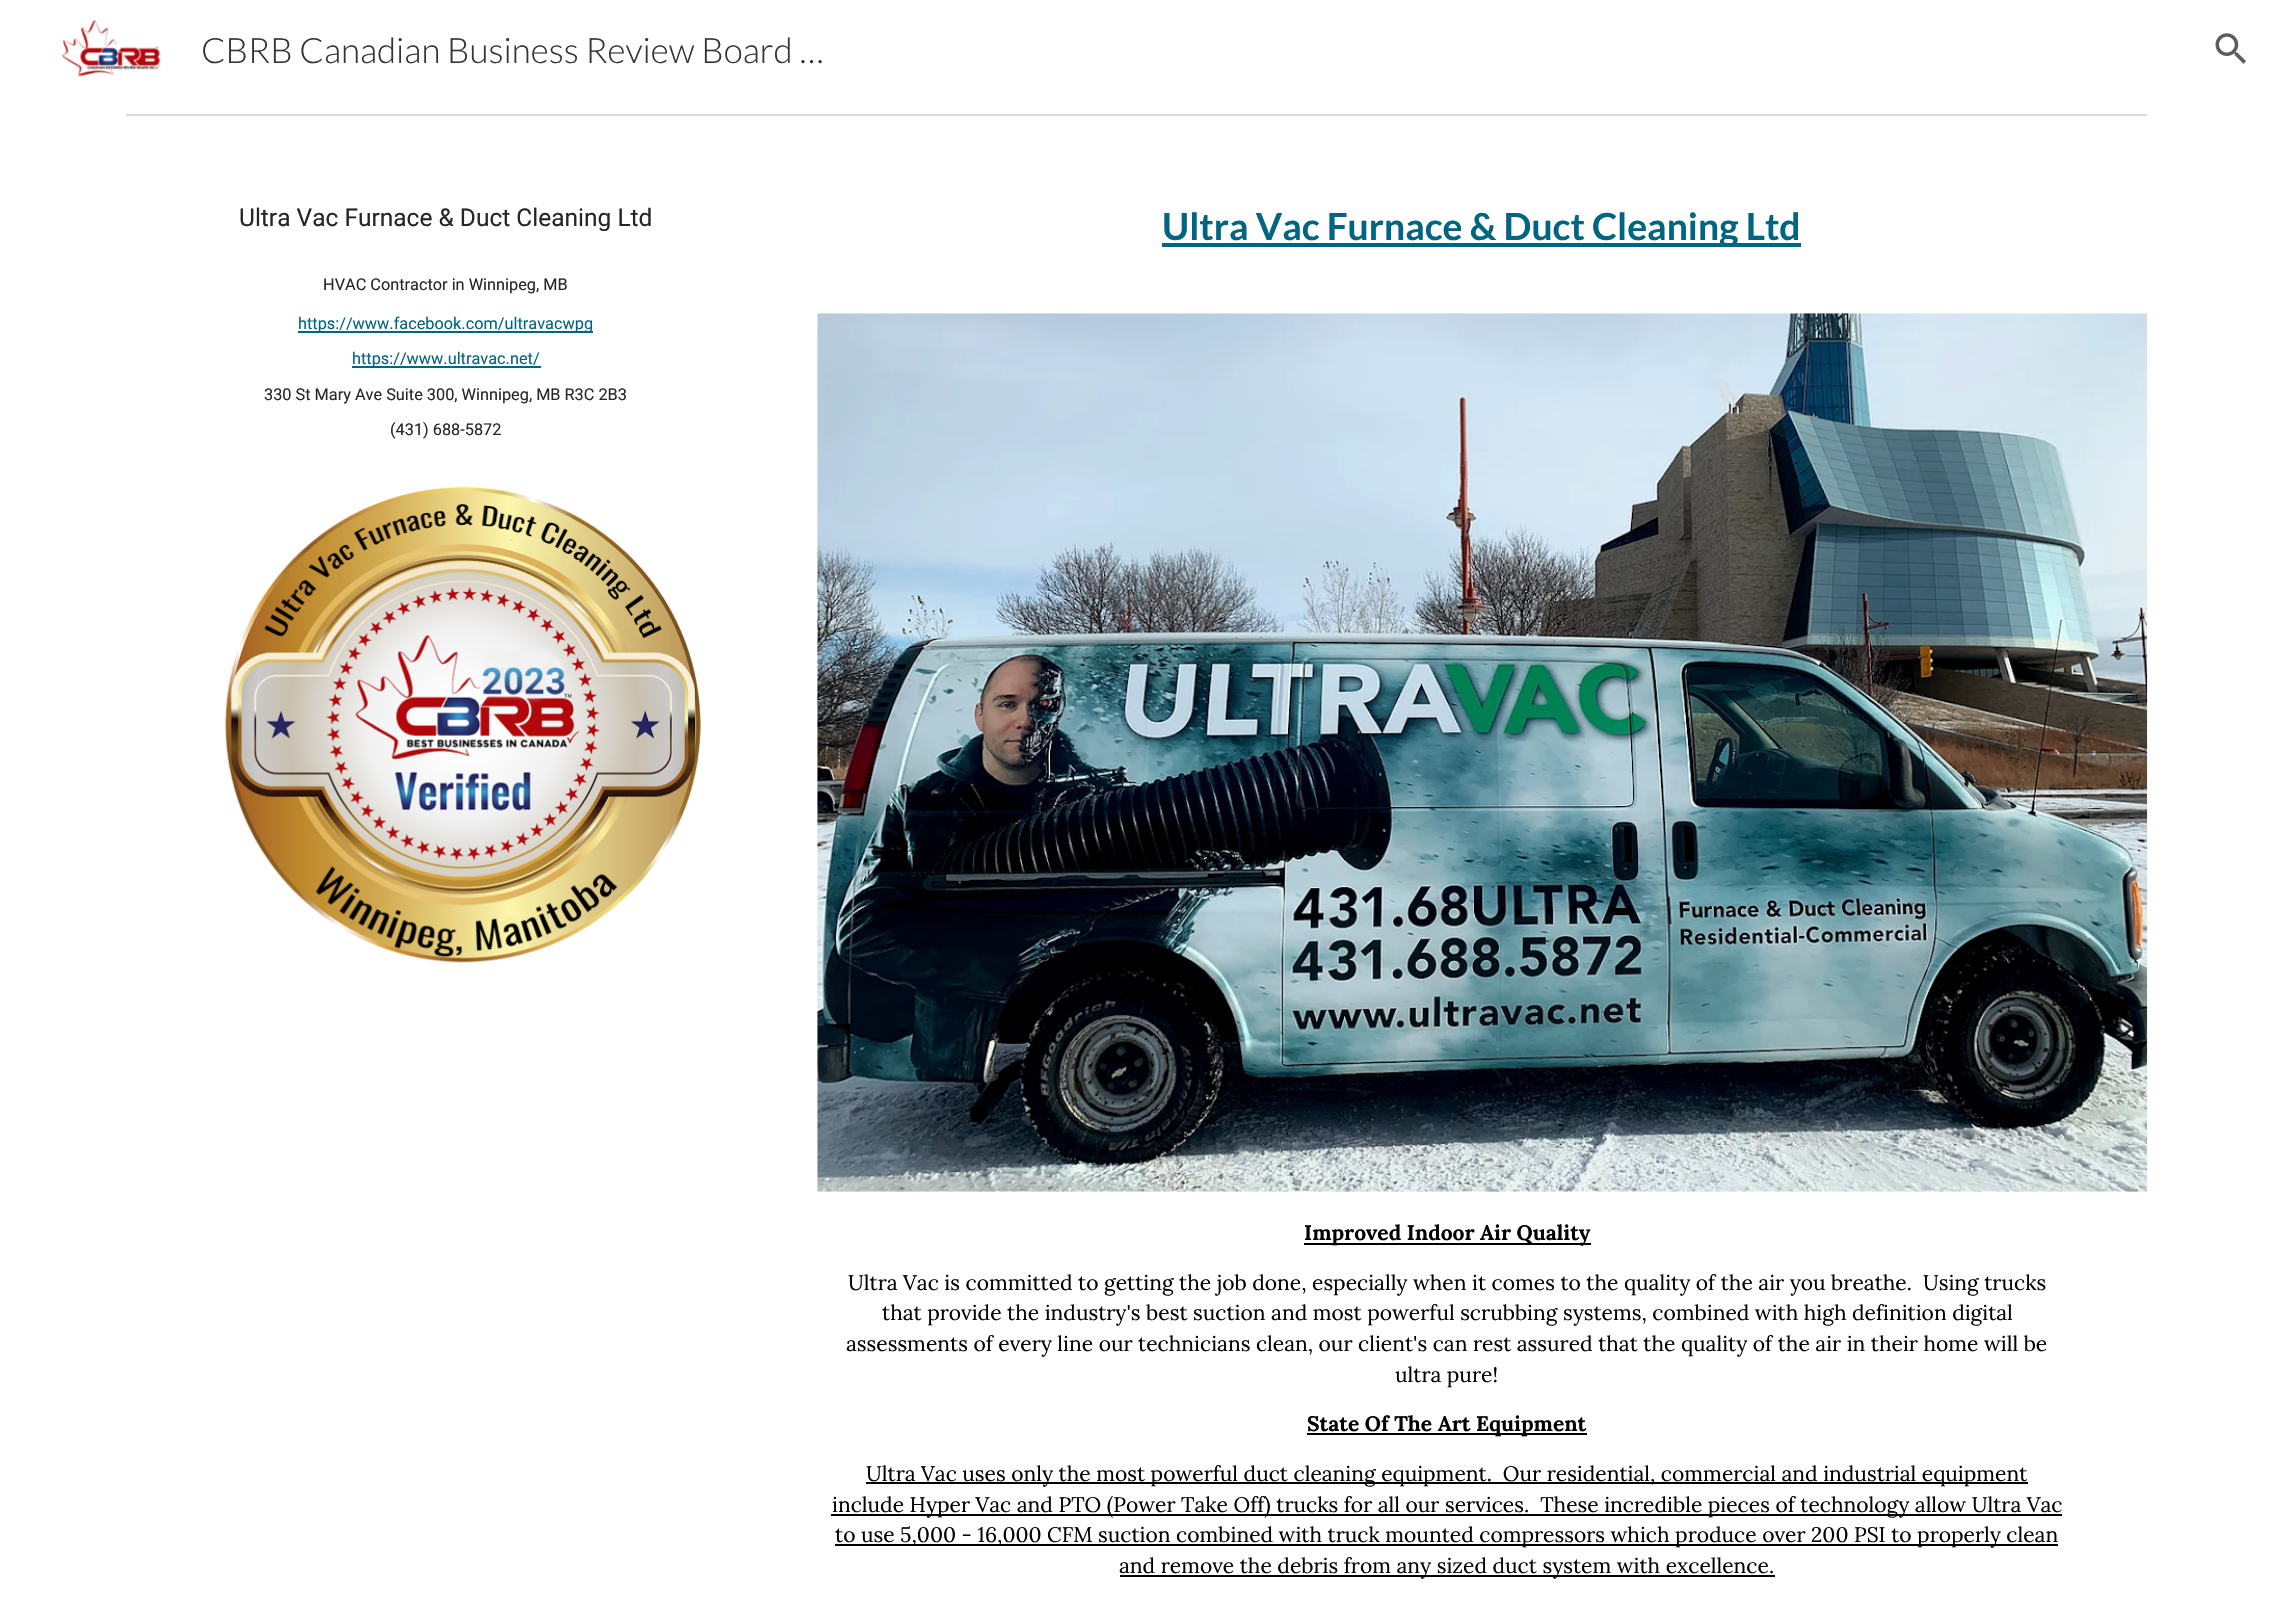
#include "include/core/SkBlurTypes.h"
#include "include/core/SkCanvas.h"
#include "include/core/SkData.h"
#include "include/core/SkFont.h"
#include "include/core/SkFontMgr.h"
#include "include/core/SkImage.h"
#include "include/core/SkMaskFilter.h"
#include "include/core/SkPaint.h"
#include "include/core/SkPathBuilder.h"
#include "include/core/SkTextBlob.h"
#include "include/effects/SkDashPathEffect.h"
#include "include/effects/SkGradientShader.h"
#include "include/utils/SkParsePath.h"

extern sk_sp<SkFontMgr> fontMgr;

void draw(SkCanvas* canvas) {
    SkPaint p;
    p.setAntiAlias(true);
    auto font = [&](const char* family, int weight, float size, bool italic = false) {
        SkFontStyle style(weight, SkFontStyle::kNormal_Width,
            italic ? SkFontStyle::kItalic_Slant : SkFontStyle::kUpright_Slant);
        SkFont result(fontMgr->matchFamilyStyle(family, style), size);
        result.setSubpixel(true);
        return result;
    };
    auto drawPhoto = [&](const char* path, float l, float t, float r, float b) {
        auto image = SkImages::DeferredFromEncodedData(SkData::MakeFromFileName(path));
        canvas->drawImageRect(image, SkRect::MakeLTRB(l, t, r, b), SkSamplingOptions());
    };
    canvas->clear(0xFFFFFFFF);
    drawPhoto("media/1.png", 62, 19, 161, 77);
    auto font1 = font("Lato", 300, 35);
    p.setColor(0xFF333333);
    canvas->drawString("CBRB Canadian Business Review Board …", 201, 63, font1, p);
    drawPhoto("media/2.png", 2215, 33, 2246, 64);
    p.setColor(0xFFD9D9D9);
    canvas->drawRect(SkRect::MakeLTRB(126, 114, 2147, 116), p);
    auto font2 = font("Roboto", 400, 24.5f);
    p.setColor(0xFF262626);
    canvas->drawString("Ultra Vac Furnace & Duct Cleaning Ltd", 239, 226, font2, p);
    auto font3 = font("Roboto", 400, 16.3f);
    canvas->drawString("HVAC Contractor in Winnipeg, MB", 323, 290, font3, p);
    p.setColor(0xFF006580);
    canvas->drawRect(SkRect::MakeLTRB(298, 331, 593, 333), p);
    canvas->drawString("https://www.facebook.com/ultravacwpg", 298, 329, font3, p);
    canvas->drawRect(SkRect::MakeLTRB(352, 366, 541, 368), p);
    canvas->drawString("https://www.ultravac.net/", 352, 364, font3, p);
    p.setColor(0xFF262626);
    canvas->drawString("330 St Mary Ave Suite 300, Winnipeg, MB R3C 2B3", 264, 400, font3, p);
    canvas->drawString("(431) 688-5872", 390, 435, font3, p);
    drawPhoto("media/3.png", 224, 486, 701, 964);
    p.setColor(0xFF006580);
    canvas->drawRect(SkRect::MakeLTRB(1162, 243, 1801, 247), p);
    auto font4 = font("Lato", 700, 37.3f);
    canvas->drawString("Ultra Vac Furnace & Duct Cleaning Ltd", 1162, 240, font4, p);
    drawPhoto("media/4.png", 817, 313, 2148, 1192);
    p.setColor(0xFF000000);
    canvas->drawRect(SkRect::MakeLTRB(1304, 1243, 1591, 1245), p);
    auto font5 = font("Lora", 700, 21);
    canvas->drawString("Improved Indoor Air Quality", 1304, 1240, font5, p);
    auto font6 = font("Lora", 400, 21);
    {
        const struct { const char* s; float x, y; } items[] = {
            {"Ultra Vac is committed to getting the job done, especially when it comes to the quality of the air you breathe.  Using trucks", 848, 1290},
            {"that provide the industry's best suction and most powerful scrubbing systems, combined with high definition digital", 882, 1320},
            {"assessments of every line our technicians clean, our client's can rest assured that the quality of the air in their home will be", 846, 1351},
            {"ultra pure!", 1395, 1382},
        };
        for (auto [s, x, y] : items) {
            canvas->drawString(s, x, y, font6, p);
        }
    }
    canvas->drawRect(SkRect::MakeLTRB(1307, 1433, 1587, 1435), p);
    canvas->drawString("State Of The Art Equipment", 1307, 1431, font5, p);
    canvas->drawRect(SkRect::MakeLTRB(866, 1482, 2028, 1484), p);
    canvas->drawString("Ultra Vac uses only the most powerful duct cleaning equipment.  Our residential, commercial and industrial equipment", 866, 1481, font6, p);
    canvas->drawRect(SkRect::MakeLTRB(831, 1514, 2062, 1516), p);
    canvas->drawString("include Hyper Vac and PTO (Power Take Off) trucks for all our services.  These incredible pieces of technology allow Ultra Vac", 832, 1512, font6, p);
    canvas->drawRect(SkRect::MakeLTRB(835, 1544, 2058, 1546), p);
    canvas->drawString("to use 5,000 - 16,000 CFM suction combined with truck mounted compressors which produce over 200 PSI to properly clean", 835, 1542, font6, p);
    canvas->drawRect(SkRect::MakeLTRB(1120, 1575, 1775, 1577), p);
    canvas->drawString("and remove the debris from any sized duct system with excellence.", 1119, 1573, font6, p);
}
